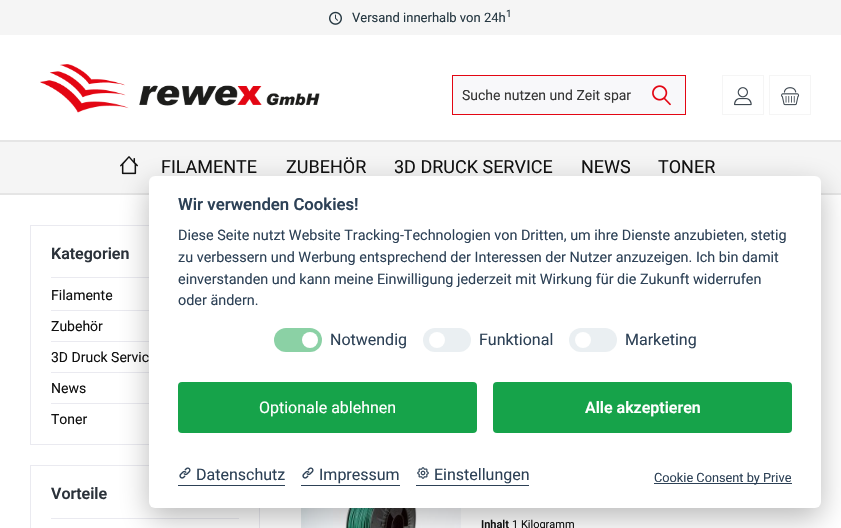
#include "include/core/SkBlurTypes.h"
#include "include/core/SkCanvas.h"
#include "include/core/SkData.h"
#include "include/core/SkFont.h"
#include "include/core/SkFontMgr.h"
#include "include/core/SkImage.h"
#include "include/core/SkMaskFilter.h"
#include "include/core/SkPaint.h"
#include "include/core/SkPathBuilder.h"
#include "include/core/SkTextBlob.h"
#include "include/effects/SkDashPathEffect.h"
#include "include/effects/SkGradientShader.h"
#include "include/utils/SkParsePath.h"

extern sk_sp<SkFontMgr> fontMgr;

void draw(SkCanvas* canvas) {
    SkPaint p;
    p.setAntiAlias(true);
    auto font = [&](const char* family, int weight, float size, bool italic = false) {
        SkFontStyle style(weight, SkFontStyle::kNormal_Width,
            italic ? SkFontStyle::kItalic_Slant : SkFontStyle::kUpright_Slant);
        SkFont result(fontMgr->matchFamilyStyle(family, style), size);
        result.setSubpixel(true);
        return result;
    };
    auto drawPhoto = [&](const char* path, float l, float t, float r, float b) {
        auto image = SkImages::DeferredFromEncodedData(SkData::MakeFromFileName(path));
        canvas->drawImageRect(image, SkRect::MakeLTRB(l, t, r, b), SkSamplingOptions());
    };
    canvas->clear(0xFFFFFFFF);
    p.setColor(0xFFF5F5F5);
    canvas->drawRect(SkRect::MakeLTRB(0, 0, 841, 35), p);
    drawPhoto("media/1.png", 329, 11, 342, 25);
    auto font1 = font("Roboto", 400, 13);
    p.setColor(0xFF263842);
    canvas->drawString("Versand innerhalb von 24h", 352, 22, font1, p);
    auto font2 = font("Roboto", 400, 10);
    canvas->drawString("1", 506, 17, font2, p);
    drawPhoto("media/2.png", 40, 64, 320, 113);
    p.setColor(0xFFF8F8FA);
    canvas->drawRect(SkRect::MakeLTRB(452.5f, 75.5f, 685.5f, 114.5f), p);
    p.setStyle(SkPaint::kStroke_Style);
    p.setStrokeWidth(1);
    p.setColor(0xFFE30613);
    canvas->drawRect(SkRect::MakeLTRB(452.5f, 75.5f, 685.5f, 114.5f), p);
    auto font3 = font("Roboto", 400, 14);
    p.setStyle(SkPaint::kFill_Style);
    p.setColor(0xFF373737);
    canvas->drawString("Suche nutzen und Zeit spar", 462, 100, font3, p);
    drawPhoto("media/3.png", 652, 85, 671, 106);
    p.setStyle(SkPaint::kStroke_Style);
    p.setColor(0xFFF5F5F5);
    canvas->drawRect(SkRect::MakeLTRB(722.5f, 75.5f, 763.5f, 114.5f), p);
    drawPhoto("media/4.png", 734, 87, 752, 106);
    canvas->drawRect(SkRect::MakeLTRB(769.5f, 75.5f, 810.5f, 114.5f), p);
    drawPhoto("media/5.png", 781, 87, 800, 106);
    p.setStyle(SkPaint::kFill_Style);
    {
        const struct { float l, t, r, b; SkColor color; } items[] = {
            {0, 142, 841, 193, 0xFFF5F5F5},
            {0, 140, 841, 142, 0xFFE5E5E5},
            {0, 193, 841, 195, 0xFFE5E5E5},
        };
        for (auto [l, t, r, b, color] : items) {
            p.setColor(color);
            canvas->drawRect(SkRect::MakeLTRB(l, t, r, b), p);
        }
    }
    drawPhoto("media/6.png", 120, 156, 138, 175);
    auto font4 = font("Roboto", 400, 18);
    p.setColor(0xFF111111);
    {
        const struct { const char* s; float x, y; } items[] = {
            {"FILAMENTE", 161, 173},
            {"ZUBEHÖR", 286, 173},
            {"3D DRUCK SERVICE", 394, 173},
            {"NEWS", 581, 173},
            {"TONER", 658, 173},
        };
        for (auto [s, x, y] : items) {
            canvas->drawString(s, x, y, font4, p);
        }
    }
    p.setColor(0xFFEAEAF0);
    canvas->drawRect(SkRect::MakeLTRB(30, 225, 149, 226), p);
    canvas->drawRect(SkRect::MakeLTRB(30, 225, 31, 280), p);
    auto font5 = font("Roboto", 600, 16);
    p.setColor(0xFF2B323A);
    canvas->drawString("Kategorien", 51, 259, font5, p);
    {
        const struct { float l, t, r, b; SkColor color; } items[] = {
            {51, 277, 149, 278, 0xFFEAEAF0},
            {30, 444, 149, 445, 0xFFEAEAF0},
            {30, 280, 31, 445, 0xFFEAEAF0},
            {51, 310, 149, 311, 0xFFEAEAF0},
        };
        for (auto [l, t, r, b, color] : items) {
            p.setColor(color);
            canvas->drawRect(SkRect::MakeLTRB(l, t, r, b), p);
        }
    }
    p.setColor(0xFF111111);
    canvas->drawString("Filamente", 51, 300, font3, p);
    p.setColor(0xFFEAEAF0);
    canvas->drawRect(SkRect::MakeLTRB(51, 341, 149, 342), p);
    p.setColor(0xFF111111);
    canvas->drawString("Zubehör", 51, 331, font3, p);
    p.setColor(0xFFEAEAF0);
    canvas->drawRect(SkRect::MakeLTRB(51, 372, 149, 373), p);
    p.setColor(0xFF111111);
    canvas->drawString("3D Druck Servic", 51, 362, font3, p);
    p.setColor(0xFFEAEAF0);
    canvas->drawRect(SkRect::MakeLTRB(51, 403, 149, 404), p);
    p.setColor(0xFF111111);
    canvas->drawString("News", 51, 393, font3, p);
    canvas->drawString("Toner", 51, 424, font3, p);
    p.setStyle(SkPaint::kStroke_Style);
    p.setColor(0xFFEAEAF0);
    canvas->drawRect(SkRect::MakeLTRB(30.5f, 465.5f, 259.5f, 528.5f), p);
    p.setStyle(SkPaint::kFill_Style);
    canvas->drawRect(SkRect::MakeLTRB(51, 518, 239, 519), p);
    p.setColor(0xFF2B323A);
    canvas->drawString("Vorteile", 51, 499, font5, p);
    drawPhoto("media/7.png", 301, 508, 461, 528);
    auto font6 = font("Roboto", 600, 11);
    p.setColor(0xFF111111);
    canvas->drawString("Inhalt", 481, 528, font6, p);
    auto font7 = font("Roboto", 400, 11);
    canvas->drawString("1 Kilogramm", 512, 528, font7, p);
    p.setColor(0x47020203);
    p.setMaskFilter(SkMaskFilter::MakeBlur(kNormal_SkBlurStyle, 15));
    canvas->drawRoundRect(SkRect::MakeLTRB(149, 186, 821, 518), 6, 6, p);
    p.setMaskFilter(nullptr);
    p.setColor(0xFFFFFFFF);
    canvas->drawRoundRect(SkRect::MakeLTRB(149, 176, 821, 508), 6, 6, p);
    auto font8 = font("Roboto", 600, 16.75f);
    p.setColor(0xFF2D4156);
    canvas->drawString("Wir verwenden Cookies!", 178, 210, font8, p);
    auto font9 = font("Roboto", 400, 14.4f);
    {
        const struct { const char* s; float x, y; } items[] = {
            {"Diese Seite nutzt Website Tracking-Technologien von Dritten, um ihre Dienste anzubieten, stetig", 178, 240},
            {"zu verbessern und Werbung entsprechend der Interessen der Nutzer anzuzeigen. Ich bin damit", 178, 262},
            {"einverstanden und kann meine Einwilligung jederzeit mit Wirkung für die Zukunft widerrufen", 178, 284},
            {"oder ändern.", 178, 305},
        };
        for (auto [s, x, y] : items) {
            canvas->drawString(s, x, y, font9, p);
        }
    }
    p.setColor(0xFF8BD1A5);
    canvas->drawRoundRect(SkRect::MakeLTRB(274, 328, 322, 352), 12, 12, p);
    p.setColor(0xFFFFFFFF);
    canvas->drawCircle(310, 340, 8, p);
    auto font10 = font("Roboto", 400, 16);
    p.setColor(0xFF2D4156);
    canvas->drawString("Notwendig", 330, 345, font10, p);
    p.setColor(0xFFEAEFF2);
    canvas->drawRoundRect(SkRect::MakeLTRB(423, 328, 471, 352), 12, 12, p);
    p.setColor(0xFFFFFFFF);
    canvas->drawCircle(437, 340, 8, p);
    p.setColor(0xFF2D4156);
    canvas->drawString("Funktional", 479, 345, font10, p);
    p.setColor(0xFFEAEFF2);
    canvas->drawRoundRect(SkRect::MakeLTRB(569, 328, 617, 352), 12, 12, p);
    p.setColor(0xFFFFFFFF);
    canvas->drawCircle(583, 340, 8, p);
    p.setColor(0xFF2D4156);
    canvas->drawString("Marketing", 625, 345, font10, p);
    p.setColor(0xFF16A34A);
    canvas->drawRoundRect(SkRect::MakeLTRB(178, 382, 477, 433), 4, 4, p);
    p.setColor(0xFFFFFFFF);
    canvas->drawString("Optionale ablehnen", 259, 413, font10, p);
    p.setColor(0xFF16A34A);
    canvas->drawRoundRect(SkRect::MakeLTRB(493, 382, 792, 433), 4, 4, p);
    p.setColor(0xFFFFFFFF);
    canvas->drawString("Alle akzeptieren", 585, 413, font5, p);
    p.setColor(0xFF2D4156);
    canvas->drawRect(SkRect::MakeLTRB(178, 485, 285, 486), p);
    drawPhoto("media/8.png", 179, 467, 191, 479);
    canvas->drawString("Datenschutz", 196, 480, font10, p);
    canvas->drawRect(SkRect::MakeLTRB(301, 485, 400, 486), p);
    drawPhoto("media/8.png", 302, 467, 314, 479);
    canvas->drawString("Impressum", 319, 480, font10, p);
    canvas->drawRect(SkRect::MakeLTRB(416, 485, 529, 486), p);
    drawPhoto("media/9.png", 417, 467, 429, 479);
    canvas->drawString("Einstellungen", 434, 480, font10, p);
    canvas->drawRect(SkRect::MakeLTRB(654, 483, 792, 484), p);
    auto font11 = font("Roboto", 400, 12.75f);
    canvas->drawString("Cookie Consent by Prive", 654, 482, font11, p);
}
